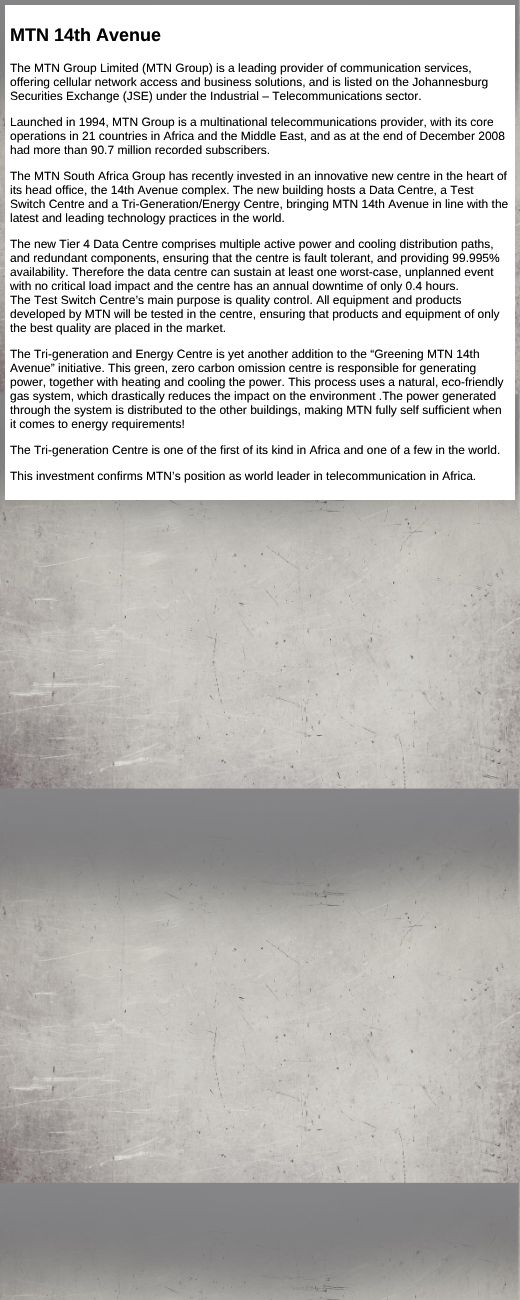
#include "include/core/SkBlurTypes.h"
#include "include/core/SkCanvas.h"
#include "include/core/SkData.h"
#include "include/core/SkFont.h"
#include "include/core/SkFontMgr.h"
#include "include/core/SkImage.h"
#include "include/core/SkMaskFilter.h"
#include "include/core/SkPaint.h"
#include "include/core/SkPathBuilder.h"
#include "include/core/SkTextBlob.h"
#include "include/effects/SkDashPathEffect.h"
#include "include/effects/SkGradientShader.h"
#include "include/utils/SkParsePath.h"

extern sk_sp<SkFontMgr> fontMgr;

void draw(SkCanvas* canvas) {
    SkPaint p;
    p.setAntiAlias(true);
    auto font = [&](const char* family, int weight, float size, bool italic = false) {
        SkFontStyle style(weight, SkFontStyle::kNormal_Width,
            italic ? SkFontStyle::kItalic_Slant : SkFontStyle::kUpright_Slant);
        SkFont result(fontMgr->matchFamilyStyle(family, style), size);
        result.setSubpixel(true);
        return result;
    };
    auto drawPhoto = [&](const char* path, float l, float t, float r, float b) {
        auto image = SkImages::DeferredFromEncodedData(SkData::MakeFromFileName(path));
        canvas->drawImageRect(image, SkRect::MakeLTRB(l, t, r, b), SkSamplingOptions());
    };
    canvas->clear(0xFFFFFFFF);
    drawPhoto("media/1.png", 0, 0, 520, 1300);
    p.setColor(0xFFFFFFFF);
    canvas->drawRect(SkRect::MakeLTRB(5, 5, 515, 500), p);
    auto font1 = font("Liberation Sans", 700, 18);
    p.setColor(0xFF000000);
    canvas->drawString("MTN 14th Avenue", 10, 41, font1, p);
    auto font2 = font("Liberation Sans", 400, 12);
    {
        const struct { const char* s; float x, y; } items[] = {
            {"The MTN Group Limited (MTN Group) is a leading provider of communication services,", 10, 72},
            {"offering cellular network access and business solutions, and is listed on the Johannesburg", 10, 86},
            {"Securities Exchange (JSE) under the Industrial – Telecommunications sector.", 10, 100},
            {"Launched in 1994, MTN Group is a multinational telecommunications provider, with its core", 10, 126},
            {"operations in 21 countries in Africa and the Middle East, and as at the end of December 2008", 10, 140},
            {"had more than 90.7 million recorded subscribers.", 10, 154},
            {"The MTN South Africa Group has recently invested in an innovative new centre in the heart of", 10, 180},
            {"its head office, the 14th Avenue complex. The new building hosts a Data Centre, a Test", 10, 194},
            {"Switch Centre and a Tri-Generation/Energy Centre, bringing MTN 14th Avenue in line with the", 10, 208},
            {"latest and leading technology practices in the world.", 10, 222},
            {"The new Tier 4 Data Centre comprises multiple active power and cooling distribution paths,", 10, 248},
            {"and redundant components, ensuring that the centre is fault tolerant, and providing 99.995%", 10, 262},
            {"availability. Therefore the data centre can sustain at least one worst-case, unplanned event", 10, 276},
            {"with no critical load impact and the centre has an annual downtime of only 0.4 hours.", 10, 290},
            {"The Test Switch Centre’s main purpose is quality control. All equipment and products", 10, 304},
            {"developed by MTN will be tested in the centre, ensuring that products and equipment of only", 10, 318},
            {"the best quality are placed in the market.", 10, 332},
            {"The Tri-generation and Energy Centre is yet another addition to the “Greening MTN 14th", 10, 358},
            {"Avenue” initiative. This green, zero carbon omission centre is responsible for generating", 10, 372},
            {"power, together with heating and cooling the power. This process uses a natural, eco-friendly", 10, 386},
            {"gas system, which drastically reduces the impact on the environment .The power generated", 10, 400},
            {"through the system is distributed to the other buildings, making MTN fully self sufficient when", 10, 414},
            {"it comes to energy requirements!", 10, 428},
            {"The Tri-generation Centre is one of the first of its kind in Africa and one of a few in the world.", 10, 454},
            {"This investment confirms MTN’s position as world leader in telecommunication in Africa.", 10, 480},
        };
        for (auto [s, x, y] : items) {
            canvas->drawString(s, x, y, font2, p);
        }
    }
}
